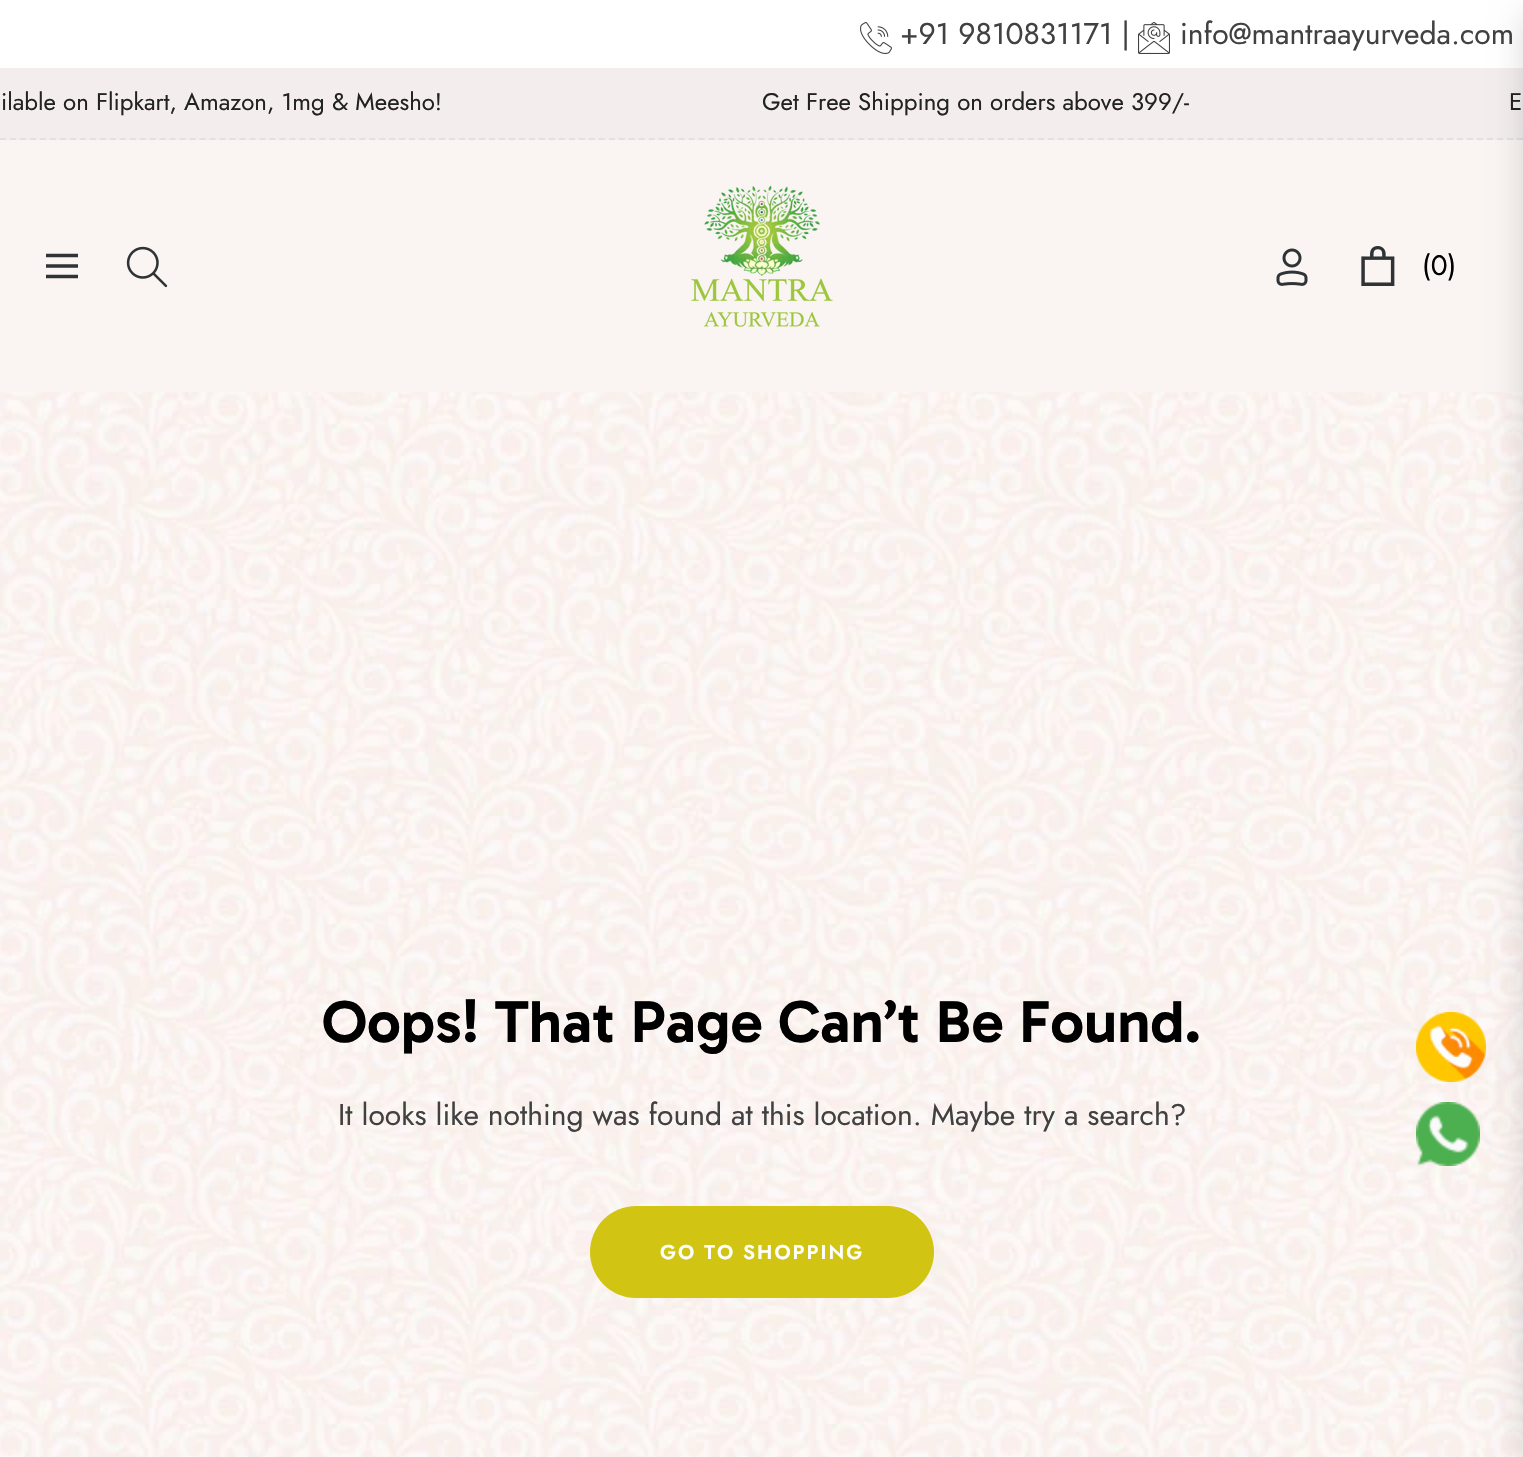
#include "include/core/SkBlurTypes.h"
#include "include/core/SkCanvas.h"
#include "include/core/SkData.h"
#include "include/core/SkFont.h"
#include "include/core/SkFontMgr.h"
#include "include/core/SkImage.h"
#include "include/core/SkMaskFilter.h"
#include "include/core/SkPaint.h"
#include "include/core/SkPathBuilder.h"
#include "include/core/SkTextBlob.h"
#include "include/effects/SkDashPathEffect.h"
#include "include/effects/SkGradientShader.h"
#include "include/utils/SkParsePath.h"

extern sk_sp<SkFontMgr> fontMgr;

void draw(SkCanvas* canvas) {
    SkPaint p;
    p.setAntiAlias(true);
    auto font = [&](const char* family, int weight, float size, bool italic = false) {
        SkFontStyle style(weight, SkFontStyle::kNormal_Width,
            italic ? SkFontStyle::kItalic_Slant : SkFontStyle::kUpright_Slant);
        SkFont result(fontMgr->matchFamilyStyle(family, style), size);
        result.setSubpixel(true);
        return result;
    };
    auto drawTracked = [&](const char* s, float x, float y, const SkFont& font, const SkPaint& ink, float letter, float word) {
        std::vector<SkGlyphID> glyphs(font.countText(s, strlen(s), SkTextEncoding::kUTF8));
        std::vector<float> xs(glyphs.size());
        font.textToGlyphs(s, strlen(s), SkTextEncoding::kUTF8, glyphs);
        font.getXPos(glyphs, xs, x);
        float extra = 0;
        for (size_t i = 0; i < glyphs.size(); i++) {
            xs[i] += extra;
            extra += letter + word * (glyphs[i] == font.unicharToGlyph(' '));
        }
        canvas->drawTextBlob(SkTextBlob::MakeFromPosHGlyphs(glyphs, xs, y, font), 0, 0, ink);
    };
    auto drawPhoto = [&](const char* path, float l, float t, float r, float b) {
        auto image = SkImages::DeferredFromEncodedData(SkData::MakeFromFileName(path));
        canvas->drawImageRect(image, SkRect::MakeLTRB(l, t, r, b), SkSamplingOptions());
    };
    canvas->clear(0xFFFFFFFF);
    drawPhoto("media/1.png", 860, 22, 892, 54);
    auto font1 = font("Jost", 400, 30);
    p.setColor(0xFF414141);
    canvas->drawString("+91 9810831171 |", 900, 44, font1, p);
    drawPhoto("media/2.png", 1138, 22, 1170, 54);
    canvas->drawString("info@mantraayurveda.com", 1180, 44, font1, p);
    p.setColor(0xFFF3EEED);
    canvas->drawRect(SkRect::MakeLTRB(0, 68, 1523, 140), p);
    p.setStyle(SkPaint::kStroke_Style);
    p.setStrokeWidth(2);
    p.setColor(0xFFE1E1E1);
    p.setPathEffect(SkDashPathEffect::Make({{6, 3.98f}}, 0));
    canvas->drawPath(SkPathBuilder().moveTo(0, 139).lineTo(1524, 139).detach(), p);
    p.setPathEffect(nullptr);
    auto font2 = font("Jost", 400, 24);
    p.setStyle(SkPaint::kFill_Style);
    p.setColor(0xFF222222);
    {
        const struct { const char* s; float x, y; } items[] = {
            {"ilable on Flipkart, Amazon, 1mg & Meesho!", 1, 110},
            {"Get Free Shipping on orders above 399/-", 762, 110},
            {"E", 1509, 110},
        };
        for (auto [s, x, y] : items) {
            canvas->drawString(s, x, y, font2, p);
        }
    }
    p.setColor(0xFFFAF5F2);
    canvas->drawRect(SkRect::MakeLTRB(0, 140, 1523, 392), p);
    p.setStyle(SkPaint::kStroke_Style);
    p.setStrokeWidth(3.6f);
    p.setColor(0xFF2F3336);
    canvas->drawPath(SkPathBuilder().moveTo(46, 255.5f).lineTo(78, 255.5f).moveTo(46, 276.5f).lineTo(78, 276.5f).close().moveTo(46, 266).lineTo(78, 266).close().detach(), p);
    drawPhoto("media/3.png", 126, 246, 168, 288);
    drawPhoto("media/4.png", 691, 185, 833, 327);
    drawPhoto("media/5.png", 1276, 248, 1308, 286);
    drawPhoto("media/6.png", 1361, 246, 1395, 286);
    auto font3 = font("Jost", 400, 28);
    p.setStyle(SkPaint::kFill_Style);
    p.setColor(0xFF000000);
    canvas->drawString("(0)", 1422, 275, font3, p);
    drawPhoto("media/7.png", 0, 392, 1523, 1457);
    drawPhoto("media/8.png", 1416, 1012, 1486, 1082);
    drawPhoto("media/9.png", 1416, 1102, 1480, 1166);
    p.setColor(0x26000000);
    p.setMaskFilter(SkMaskFilter::MakeBlur(kNormal_SkBlurStyle, 16));
    canvas->drawRect(SkRect::MakeLTRB(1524, 16, 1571, 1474), p);
    p.setMaskFilter(nullptr);
    auto font4 = font("Gabarito", 600, 60);
    p.setColor(0xFF000000);
    canvas->drawString("Oops! That Page Can’t Be Found.", 322, 1042, font4, p);
    p.setColor(0xFF414141);
    canvas->drawString("It looks like nothing was found at this location. Maybe try a search?", 338, 1125, font1, p);
    p.setColor(0xFFD1C412);
    canvas->drawRoundRect(SkRect::MakeLTRB(590, 1206, 934, 1298), 46, 46, p);
    auto font5 = font("Jost", 600, 20);
    p.setColor(0xFFFFFFFF);
    drawTracked("GO TO SHOPPING", 660, 1259, font5, p, 2, 0);
}
